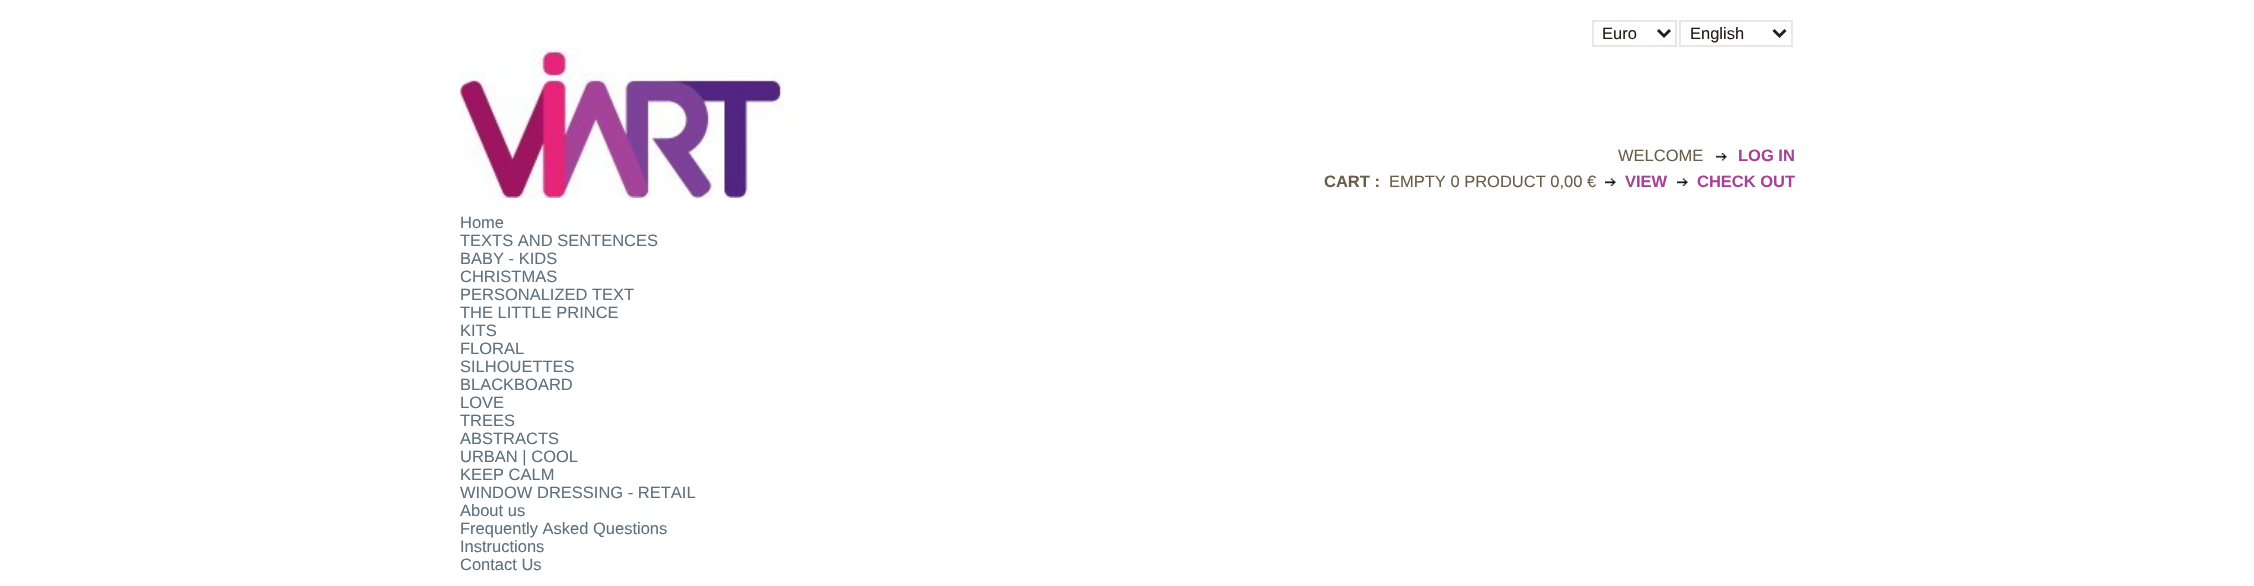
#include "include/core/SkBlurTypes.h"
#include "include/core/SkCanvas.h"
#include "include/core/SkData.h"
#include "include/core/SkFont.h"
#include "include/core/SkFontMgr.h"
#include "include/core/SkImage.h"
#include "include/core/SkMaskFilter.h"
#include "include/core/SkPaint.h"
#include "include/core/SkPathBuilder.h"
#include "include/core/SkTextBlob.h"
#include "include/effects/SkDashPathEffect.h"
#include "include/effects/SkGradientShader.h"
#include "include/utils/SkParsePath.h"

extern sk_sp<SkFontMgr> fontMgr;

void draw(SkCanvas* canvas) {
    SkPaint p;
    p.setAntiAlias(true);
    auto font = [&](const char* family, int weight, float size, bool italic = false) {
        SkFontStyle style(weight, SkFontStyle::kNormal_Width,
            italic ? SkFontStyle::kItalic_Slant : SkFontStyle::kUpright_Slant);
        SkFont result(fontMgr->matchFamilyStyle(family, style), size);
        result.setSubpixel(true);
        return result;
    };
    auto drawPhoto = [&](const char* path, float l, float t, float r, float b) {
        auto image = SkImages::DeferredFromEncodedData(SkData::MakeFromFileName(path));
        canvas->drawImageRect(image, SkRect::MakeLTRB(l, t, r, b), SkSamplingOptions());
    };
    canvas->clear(0xFFFFFFFF);
    p.setStyle(SkPaint::kStroke_Style);
    p.setStrokeWidth(2);
    p.setColor(0xFFE8E6E6);
    canvas->drawRect(SkRect::MakeLTRB(1593, 21, 1676, 46), p);
    p.setStrokeWidth(3);
    p.setColor(0xFF261C1C);
    canvas->drawPath(SkPathBuilder().moveTo(1658, 30).lineTo(1664, 36).lineTo(1670, 30).detach(), p);
    auto font1 = font("Liberation Sans", 400, 16.5f);
    p.setStyle(SkPaint::kFill_Style);
    canvas->drawString("Euro", 1602, 39, font1, p);
    p.setStyle(SkPaint::kStroke_Style);
    p.setStrokeWidth(2);
    p.setColor(0xFFE8E6E6);
    canvas->drawRect(SkRect::MakeLTRB(1680, 21, 1792, 46), p);
    p.setStrokeWidth(3);
    p.setColor(0xFF261C1C);
    canvas->drawPath(SkPathBuilder().moveTo(1773.5f, 30).lineTo(1779.5f, 36).lineTo(1785.5f, 30).detach(), p);
    p.setStyle(SkPaint::kFill_Style);
    canvas->drawString("English", 1690, 39, font1, p);
    drawPhoto("media/1.png", 460, 48, 790, 198);
    p.setColor(0xFF6A5D4A);
    canvas->drawString("WELCOME", 1618, 161, font1, p);
    drawPhoto("media/2.png", 1716, 153, 1727, 161);
    auto font2 = font("Liberation Sans", 700, 16.5f);
    p.setColor(0xFFA54399);
    canvas->drawString("LOG IN", 1738, 161, font2, p);
    p.setColor(0xFF6A5D4A);
    canvas->drawString("CART :", 1324, 187, font2, p);
    canvas->drawString("EMPTY 0 PRODUCT 0,00 €", 1389, 187, font1, p);
    drawPhoto("media/3.png", 1605, 178, 1616, 186);
    p.setColor(0xFFA54399);
    canvas->drawString("VIEW", 1625, 187, font2, p);
    drawPhoto("media/3.png", 1677, 178, 1688, 186);
    canvas->drawString("CHECK OUT", 1697, 187, font2, p);
    p.setColor(0xFF5D717E);
    {
        const struct { const char* s; float x, y; } items[] = {
            {"Home", 460, 228},
            {"TEXTS AND SENTENCES", 460, 246},
            {"BABY - KIDS", 460, 264},
            {"CHRISTMAS", 460, 282},
            {"PERSONALIZED TEXT", 460, 300},
            {"THE LITTLE PRINCE", 460, 318},
            {"KITS", 460, 336},
            {"FLORAL", 460, 354},
            {"SILHOUETTES", 460, 372},
            {"BLACKBOARD", 460, 390},
            {"LOVE", 460, 408},
            {"TREES", 460, 426},
            {"ABSTRACTS", 460, 444},
            {"URBAN | COOL", 460, 462},
            {"KEEP CALM", 460, 480},
            {"WINDOW DRESSING - RETAIL", 460, 498},
            {"About us", 460, 516},
            {"Frequently Asked Questions", 460, 534},
            {"Instructions", 460, 552},
            {"Contact Us", 460, 570},
        };
        for (auto [s, x, y] : items) {
            canvas->drawString(s, x, y, font1, p);
        }
    }
}
